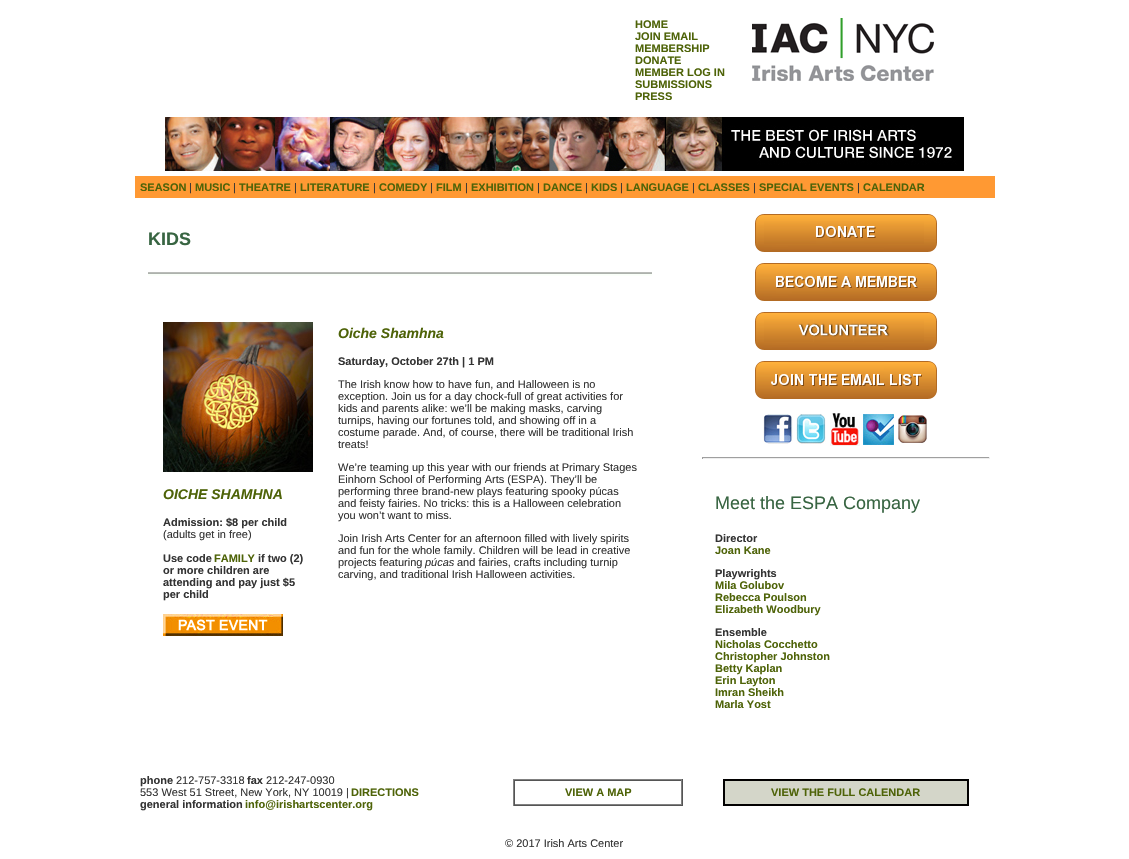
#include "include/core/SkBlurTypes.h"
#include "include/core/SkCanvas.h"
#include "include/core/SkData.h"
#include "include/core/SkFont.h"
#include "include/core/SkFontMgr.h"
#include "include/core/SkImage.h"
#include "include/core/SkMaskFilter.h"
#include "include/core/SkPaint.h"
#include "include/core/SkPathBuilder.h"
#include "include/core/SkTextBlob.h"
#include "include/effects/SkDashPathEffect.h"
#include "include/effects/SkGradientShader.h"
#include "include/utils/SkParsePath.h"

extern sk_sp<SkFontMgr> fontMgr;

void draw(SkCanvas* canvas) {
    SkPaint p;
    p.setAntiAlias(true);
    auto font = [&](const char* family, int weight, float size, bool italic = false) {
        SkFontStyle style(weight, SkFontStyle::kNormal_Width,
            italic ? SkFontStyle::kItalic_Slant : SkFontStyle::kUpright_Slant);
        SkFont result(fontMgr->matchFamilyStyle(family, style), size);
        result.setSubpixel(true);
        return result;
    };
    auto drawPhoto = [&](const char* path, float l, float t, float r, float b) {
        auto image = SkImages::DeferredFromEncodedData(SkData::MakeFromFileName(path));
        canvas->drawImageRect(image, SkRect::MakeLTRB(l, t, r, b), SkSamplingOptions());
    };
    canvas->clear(0xFFFFFFFF);
    auto font1 = font("Liberation Sans", 700, 11);
    p.setColor(0xFF4E6308);
    canvas->drawString("HOME", 635, 28, font1, p);
    drawPhoto("media/1.png", 752, 18, 934, 81);
    {
        const struct { const char* s; float x, y; } items[] = {
            {"JOIN EMAIL", 635, 40},
            {"MEMBERSHIP", 635, 52},
            {"DONATE", 635, 64},
            {"MEMBER LOG IN", 635, 76},
            {"SUBMISSIONS", 635, 88},
            {"PRESS", 635, 100},
        };
        for (auto [s, x, y] : items) {
            canvas->drawString(s, x, y, font1, p);
        }
    }
    drawPhoto("media/2.png", 165, 117, 964, 171);
    p.setColor(0xFFFF9933);
    canvas->drawRect(SkRect::MakeLTRB(135, 176, 995, 198), p);
    p.setColor(0xFF4E6308);
    canvas->drawString("SEASON", 140, 191, font1, p);
    auto font2 = font("Liberation Sans", 400, 11);
    p.setColor(0xFF333333);
    canvas->drawString("|", 189, 191, font2, p);
    p.setColor(0xFF4E6308);
    canvas->drawString("MUSIC", 195, 191, font1, p);
    p.setColor(0xFF333333);
    canvas->drawString("|", 233, 191, font2, p);
    p.setColor(0xFF4E6308);
    canvas->drawString("THEATRE", 239, 191, font1, p);
    p.setColor(0xFF333333);
    canvas->drawString("|", 294, 191, font2, p);
    p.setColor(0xFF4E6308);
    canvas->drawString("LITERATURE", 300, 191, font1, p);
    p.setColor(0xFF333333);
    canvas->drawString("|", 373, 191, font2, p);
    p.setColor(0xFF4E6308);
    canvas->drawString("COMEDY", 379, 191, font1, p);
    p.setColor(0xFF333333);
    canvas->drawString("|", 430, 191, font2, p);
    p.setColor(0xFF4E6308);
    canvas->drawString("FILM", 436, 191, font1, p);
    p.setColor(0xFF333333);
    canvas->drawString("|", 465, 191, font2, p);
    p.setColor(0xFF4E6308);
    canvas->drawString("EXHIBITION", 471, 191, font1, p);
    p.setColor(0xFF333333);
    canvas->drawString("|", 537, 191, font2, p);
    p.setColor(0xFF4E6308);
    canvas->drawString("DANCE", 543, 191, font1, p);
    p.setColor(0xFF333333);
    canvas->drawString("|", 585, 191, font2, p);
    p.setColor(0xFF4E6308);
    canvas->drawString("KIDS", 591, 191, font1, p);
    p.setColor(0xFF333333);
    canvas->drawString("|", 620, 191, font2, p);
    p.setColor(0xFF4E6308);
    canvas->drawString("LANGUAGE", 626, 191, font1, p);
    p.setColor(0xFF333333);
    canvas->drawString("|", 692, 191, font2, p);
    p.setColor(0xFF4E6308);
    canvas->drawString("CLASSES", 698, 191, font1, p);
    p.setColor(0xFF333333);
    canvas->drawString("|", 753, 191, font2, p);
    p.setColor(0xFF4E6308);
    canvas->drawString("SPECIAL EVENTS", 759, 191, font1, p);
    p.setColor(0xFF333333);
    canvas->drawString("|", 857, 191, font2, p);
    p.setColor(0xFF4E6308);
    canvas->drawString("CALENDAR", 863, 191, font1, p);
    auto font3 = font("Liberation Sans", 700, 18);
    p.setColor(0xFF386542);
    canvas->drawString("KIDS", 148, 245, font3, p);
    drawPhoto("media/3.png", 148, 272, 652, 276);
    drawPhoto("media/4.png", 163, 322, 313, 472);
    auto font4 = font("Liberation Sans", 700, 14, true);
    p.setColor(0xFF4E6308);
    canvas->drawString("OICHE SHAMHNA", 163, 499, font4, p);
    p.setColor(0xFF333333);
    canvas->drawString("Admission: $8 per child", 163, 526, font1, p);
    canvas->drawString("(adults get in free)", 163, 538, font2, p);
    canvas->drawString("Use code", 163, 562, font1, p);
    p.setColor(0xFF4E6308);
    canvas->drawString("FAMILY", 214, 562, font1, p);
    p.setColor(0xFF333333);
    {
        const struct { const char* s; float x, y; } items[] = {
            {"if two (2)", 258, 562},
            {"or more children are", 163, 574},
            {"attending and pay just $5", 163, 586},
            {"per child", 163, 598},
        };
        for (auto [s, x, y] : items) {
            canvas->drawString(s, x, y, font1, p);
        }
    }
    drawPhoto("media/5.png", 163, 614, 283, 636);
    p.setColor(0xFF4E6308);
    canvas->drawString("Oiche Shamhna", 338, 338, font4, p);
    p.setColor(0xFF333333);
    canvas->drawString("Saturday, October 27th | 1 PM", 338, 365, font1, p);
    {
        const struct { const char* s; float x, y; } items[] = {
            {"The Irish know how to have fun, and Halloween is no", 338, 388},
            {"exception. Join us for a day chock-full of great activities for", 338, 400},
            {"kids and parents alike: we’ll be making masks, carving", 338, 412},
            {"turnips, having our fortunes told, and showing off in a", 338, 424},
            {"costume parade. And, of course, there will be traditional Irish", 338, 436},
            {"treats!", 338, 448},
            {"We’re teaming up this year with our friends at Primary Stages", 338, 471},
            {"Einhorn School of Performing Arts (ESPA). They’ll be", 338, 483},
            {"performing three brand-new plays featuring spooky púcas", 338, 495},
            {"and feisty fairies. No tricks: this is a Halloween celebration", 338, 507},
            {"you won’t want to miss.", 338, 519},
            {"Join Irish Arts Center for an afternoon filled with lively spirits", 338, 542},
            {"and fun for the whole family. Children will be lead in creative", 338, 554},
            {"projects featuring", 338, 566},
        };
        for (auto [s, x, y] : items) {
            canvas->drawString(s, x, y, font2, p);
        }
    }
    auto font5 = font("Liberation Sans", 400, 11, true);
    canvas->drawString("púcas", 425, 566, font5, p);
    canvas->drawString("and fairies, crafts including turnip", 457, 566, font2, p);
    canvas->drawString("carving, and traditional Irish Halloween activities.", 338, 578, font2, p);
    drawPhoto("media/6.png", 755, 214, 937, 252);
    drawPhoto("media/7.png", 755, 263, 937, 301);
    drawPhoto("media/8.png", 755, 312, 937, 350);
    drawPhoto("media/9.png", 755, 361, 937, 399);
    drawPhoto("media/10.png", 763, 414, 793, 444);
    drawPhoto("media/11.png", 796, 414, 826, 444);
    drawPhoto("media/12.png", 830, 413, 860, 446);
    drawPhoto("media/13.png", 863, 414, 894, 445);
    drawPhoto("media/14.png", 898, 415, 927, 443);
    {
        const struct { float l, t, r, b; SkColor color; } items[] = {
            {702, 457, 990, 458, 0xFF9F9F9F},
            {989, 457, 990, 459, 0xFFEEEEEE},
            {702, 458, 990, 459, 0xFFEEEEEE},
            {702, 457, 703, 459, 0xFF9F9F9F},
        };
        for (auto [l, t, r, b, color] : items) {
            p.setColor(color);
            canvas->drawRect(SkRect::MakeLTRB(l, t, r, b), p);
        }
    }
    auto font6 = font("Liberation Sans", 400, 18);
    p.setColor(0xFF386542);
    canvas->drawString("Meet the ESPA Company", 715, 509, font6, p);
    p.setColor(0xFF333333);
    canvas->drawString("Director", 715, 542, font1, p);
    p.setColor(0xFF4E6308);
    canvas->drawString("Joan Kane", 715, 554, font1, p);
    p.setColor(0xFF333333);
    canvas->drawString("Playwrights", 715, 577, font1, p);
    p.setColor(0xFF4E6308);
    {
        const struct { const char* s; float x, y; } items[] = {
            {"Mila Golubov", 715, 589},
            {"Rebecca Poulson", 715, 601},
            {"Elizabeth Woodbury", 715, 613},
        };
        for (auto [s, x, y] : items) {
            canvas->drawString(s, x, y, font1, p);
        }
    }
    p.setColor(0xFF333333);
    canvas->drawString("Ensemble", 715, 636, font1, p);
    p.setColor(0xFF4E6308);
    {
        const struct { const char* s; float x, y; } items[] = {
            {"Nicholas Cocchetto", 715, 648},
            {"Christopher Johnston", 715, 660},
            {"Betty Kaplan", 715, 672},
            {"Erin Layton", 715, 684},
            {"Imran Sheikh", 715, 696},
            {"Marla Yost", 715, 708},
        };
        for (auto [s, x, y] : items) {
            canvas->drawString(s, x, y, font1, p);
        }
    }
    p.setColor(0xFF333333);
    canvas->drawString("phone", 140, 784, font1, p);
    canvas->drawString("212-757-3318", 176, 784, font2, p);
    canvas->drawString("fax", 247, 784, font1, p);
    canvas->drawString("212-247-0930", 266, 784, font2, p);
    canvas->drawString("553 West 51 Street, New York, NY 10019 |", 140, 796, font2, p);
    p.setColor(0xFF4E6308);
    canvas->drawString("DIRECTIONS", 351, 796, font1, p);
    p.setColor(0xFF333333);
    canvas->drawString("general information", 140, 808, font1, p);
    p.setColor(0xFF4E6308);
    canvas->drawString("info@irishartscenter.org", 245, 808, font1, p);
    {
        const struct { float l, t, r, b; SkColor color; } items[] = {
            {513, 779, 683, 780, 0xFF808080},
            {682, 779, 683, 806, 0xFF555555},
            {513, 805, 683, 806, 0xFF555555},
            {513, 779, 514, 806, 0xFF808080},
            {514, 780, 682, 781, 0xFF555555},
            {681, 780, 682, 805, 0xFF808080},
            {514, 804, 682, 805, 0xFF808080},
            {514, 780, 515, 805, 0xFF555555},
        };
        for (auto [l, t, r, b, color] : items) {
            p.setColor(color);
            canvas->drawRect(SkRect::MakeLTRB(l, t, r, b), p);
        }
    }
    p.setColor(0xFF4E6308);
    canvas->drawString("VIEW A MAP", 565, 796, font1, p);
    p.setStyle(SkPaint::kStroke_Style);
    p.setStrokeWidth(1);
    p.setColor(0xFF010000);
    canvas->drawRect(SkRect::MakeLTRB(723.5f, 779.5f, 968.5f, 805.5f), p);
    p.setStyle(SkPaint::kFill_Style);
    p.setColor(0xFFD4D6C9);
    canvas->drawRect(SkRect::MakeLTRB(724.5f, 780.5f, 967.5f, 804.5f), p);
    p.setStyle(SkPaint::kStroke_Style);
    p.setColor(0xFF010000);
    canvas->drawRect(SkRect::MakeLTRB(724.5f, 780.5f, 967.5f, 804.5f), p);
    p.setStyle(SkPaint::kFill_Style);
    p.setColor(0xFF4E6308);
    canvas->drawString("VIEW THE FULL CALENDAR", 771, 796, font1, p);
    p.setColor(0xFF333333);
    canvas->drawString("© 2017 Irish Arts Center", 505, 847, font2, p);
}
